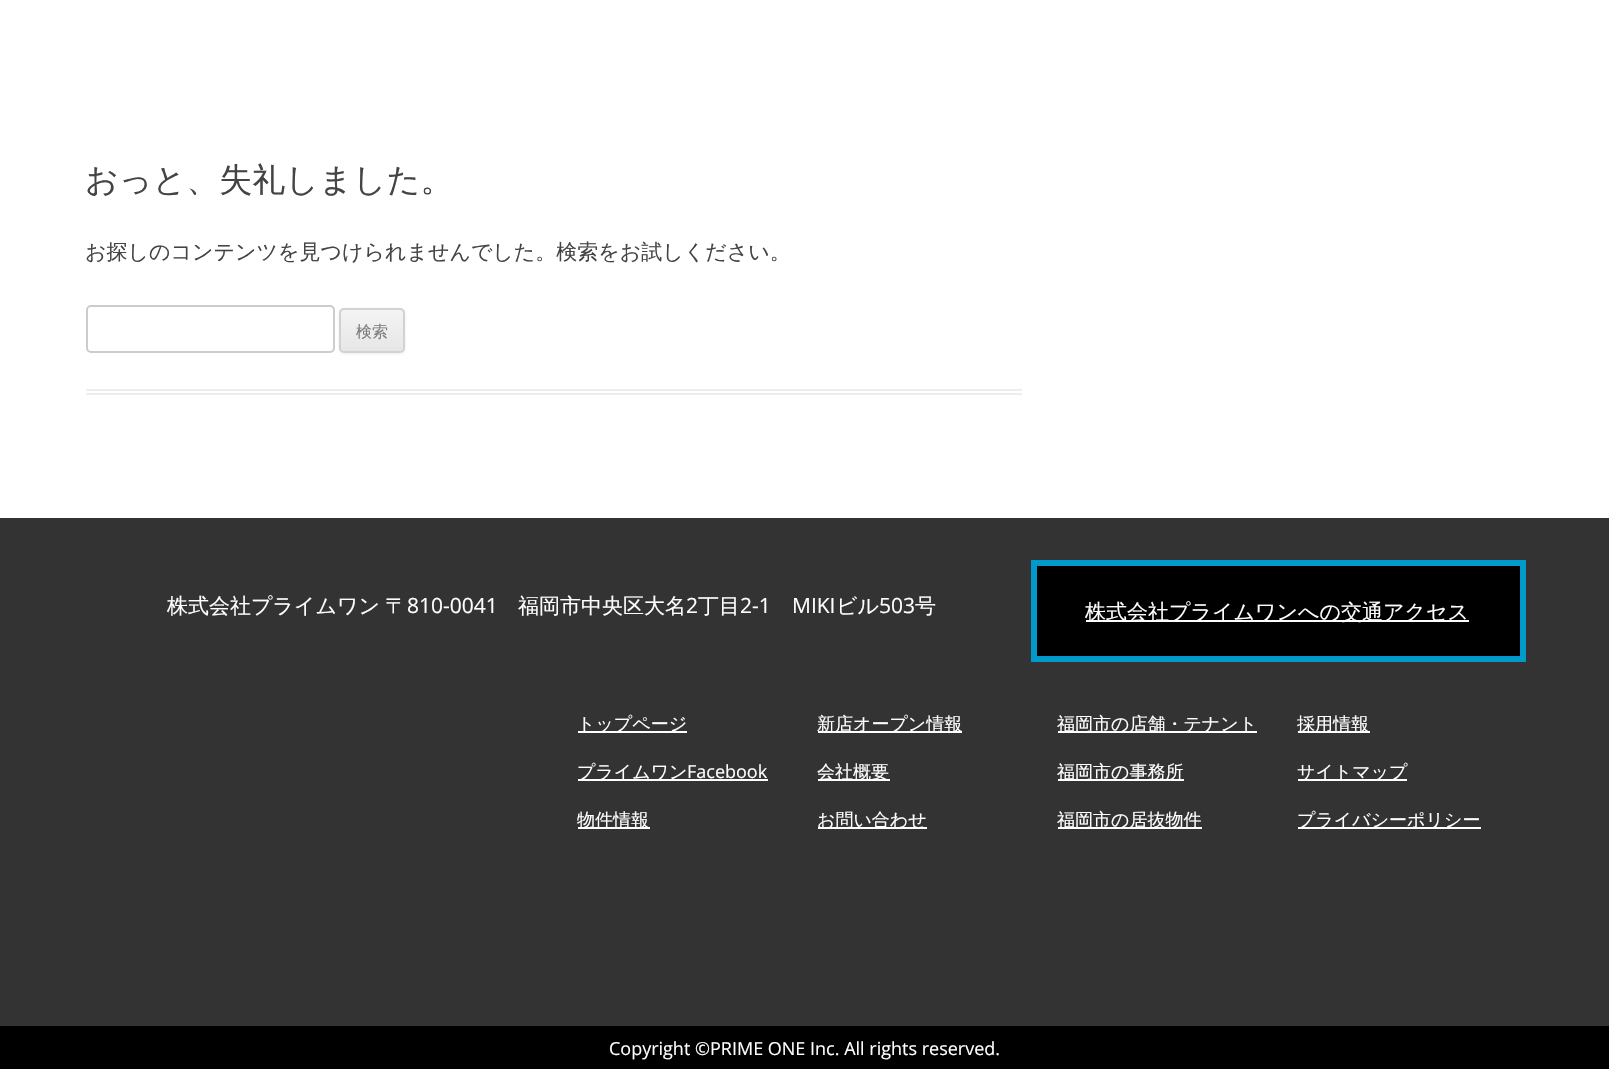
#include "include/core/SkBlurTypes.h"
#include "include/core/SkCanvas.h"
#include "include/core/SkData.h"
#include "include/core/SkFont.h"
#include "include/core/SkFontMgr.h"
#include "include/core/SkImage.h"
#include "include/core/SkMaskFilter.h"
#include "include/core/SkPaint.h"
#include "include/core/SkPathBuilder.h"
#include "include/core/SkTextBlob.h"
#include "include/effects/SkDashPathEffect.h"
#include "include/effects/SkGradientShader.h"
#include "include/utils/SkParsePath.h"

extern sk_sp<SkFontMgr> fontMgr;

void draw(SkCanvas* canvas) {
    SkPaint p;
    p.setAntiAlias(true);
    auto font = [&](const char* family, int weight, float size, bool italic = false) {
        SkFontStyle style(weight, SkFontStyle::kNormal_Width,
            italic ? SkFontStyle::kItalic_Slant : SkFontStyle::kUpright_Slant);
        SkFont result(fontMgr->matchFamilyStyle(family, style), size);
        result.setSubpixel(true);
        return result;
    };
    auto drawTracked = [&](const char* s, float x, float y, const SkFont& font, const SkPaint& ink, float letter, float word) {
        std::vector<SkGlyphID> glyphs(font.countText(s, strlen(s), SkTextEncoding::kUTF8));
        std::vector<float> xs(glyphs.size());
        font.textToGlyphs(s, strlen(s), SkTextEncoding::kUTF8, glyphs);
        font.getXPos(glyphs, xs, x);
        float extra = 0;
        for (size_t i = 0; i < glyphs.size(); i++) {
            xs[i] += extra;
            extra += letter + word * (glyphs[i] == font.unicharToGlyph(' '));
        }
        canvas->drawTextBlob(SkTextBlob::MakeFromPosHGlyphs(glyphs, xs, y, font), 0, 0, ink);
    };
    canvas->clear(0xFFFFFFFF);
    p.setColor(0xFFEDEDED);
    canvas->drawRect(SkRect::MakeLTRB(86, 389, 1022, 391), p);
    canvas->drawRect(SkRect::MakeLTRB(86, 393, 1022, 395), p);
    auto font1 = font("WenQuanYi Zen Hei", 500, 33);
    p.setColor(0xFF444444);
    canvas->drawString("おっと、失礼しました。", 85, 191, font1, p);
    auto font2 = font("WenQuanYi Zen Hei", 500, 21);
    canvas->drawString("お探しのコンテンツを見つけられませんでした。検索をお試しください。", 85, 259, font2, p);
    p.setStyle(SkPaint::kStroke_Style);
    p.setStrokeWidth(2);
    p.setColor(0xFFCCCCCC);
    canvas->drawRoundRect(SkRect::MakeLTRB(87, 306, 334, 352), 4, 4, p);
    p.setStyle(SkPaint::kFill_Style);
    p.setColor(0x1A404040);
    p.setMaskFilter(SkMaskFilter::MakeBlur(kNormal_SkBlurStyle, 1.5f));
    canvas->drawRoundRect(SkRect::MakeLTRB(339, 309, 405, 354), 5, 5, p);
    p.setMaskFilter(nullptr);
    canvas->save();
    canvas->clipPath(SkPathBuilder().moveTo(344, 308).lineTo(400, 308).cubicTo(403, 308, 405, 310, 405, 313).lineTo(405, 348).cubicTo(405, 351, 403, 353, 400, 353).lineTo(344, 353).cubicTo(341, 353, 339, 351, 339, 348).lineTo(339, 313).cubicTo(339, 310, 341, 308, 344, 308).close().detach(), true);
    {
        const SkColor colors[] = {0xFFF4F4F4, 0xFFE6E6E6};
        const float stops[] = {0, 1};
        const SkPoint ends[] = {{372, 309}, {372, 351}};
        p.setShader(SkGradientShader::MakeLinear(ends, colors, stops, 2, SkTileMode::kClamp));
        p.setAlpha(255);
    }
    canvas->drawRect(SkRect::MakeLTRB(339, 309, 405, 351), p);
    canvas->restore();
    p.setStyle(SkPaint::kStroke_Style);
    p.setShader(nullptr);
    p.setColor(0xFFD2D2D2);
    canvas->drawRoundRect(SkRect::MakeLTRB(340, 309, 404, 352), 4, 4, p);
    auto font3 = font("WenQuanYi Zen Hei", 500, 16);
    p.setStyle(SkPaint::kFill_Style);
    p.setColor(0xFF7C7C7C);
    canvas->drawString("検索", 356, 337, font3, p);
    p.setColor(0xFF333333);
    canvas->drawRect(SkRect::MakeLTRB(0, 518, 1609, 1026), p);
    p.setColor(0xFFFFFFFF);
    drawTracked("株式会社プライムワン 〒", 167, 613, font2, p, 0, -1);
    auto font4 = font("Open Sans", 400, 21);
    canvas->drawString("810-0041", 407, 613, font4, p);
    canvas->drawString("福岡市中央区大名", 518, 613, font2, p);
    canvas->drawString("2", 686, 613, font4, p);
    canvas->drawString("丁目", 698, 613, font2, p);
    canvas->drawString("2-1", 740, 613, font4, p);
    canvas->drawString("MIKI", 792, 613, font4, p);
    canvas->drawString("ビル", 836, 613, font2, p);
    canvas->drawString("503", 879, 613, font4, p);
    canvas->drawString("号", 915, 613, font2, p);
    p.setColor(0xFF000000);
    canvas->drawRect(SkRect::MakeLTRB(1034, 563, 1523, 659), p);
    p.setStyle(SkPaint::kStroke_Style);
    p.setStrokeWidth(6);
    p.setColor(0xFF0099CC);
    canvas->drawRect(SkRect::MakeLTRB(1034, 563, 1523, 659), p);
    p.setStyle(SkPaint::kFill_Style);
    p.setColor(0xFFFFFFFF);
    canvas->drawRect(SkRect::MakeLTRB(1086, 620, 1469, 622), p);
    canvas->drawString("株式会社プライムワンへの交通アクセス", 1085, 619, font2, p);
    canvas->drawRect(SkRect::MakeLTRB(578, 731, 687, 733), p);
    auto font5 = font("WenQuanYi Zen Hei", 500, 18);
    canvas->drawString("トップページ", 577, 730, font5, p);
    canvas->drawRect(SkRect::MakeLTRB(578, 779, 768, 781), p);
    canvas->drawString("プライムワン", 577, 778, font5, p);
    auto font6 = font("Open Sans", 400, 18);
    canvas->drawString("Facebook", 687, 778, font6, p);
    canvas->drawRect(SkRect::MakeLTRB(578, 827, 650, 829), p);
    canvas->drawString("物件情報", 577, 826, font5, p);
    canvas->drawRect(SkRect::MakeLTRB(818, 731, 962, 733), p);
    canvas->drawString("新店オープン情報", 817, 730, font5, p);
    canvas->drawRect(SkRect::MakeLTRB(818, 779, 890, 781), p);
    canvas->drawString("会社概要", 817, 778, font5, p);
    canvas->drawRect(SkRect::MakeLTRB(818, 827, 927, 829), p);
    canvas->drawString("お問い合わせ", 817, 826, font5, p);
    canvas->drawRect(SkRect::MakeLTRB(1058, 731, 1257, 733), p);
    canvas->drawString("福岡市の店舗・テナント", 1057, 730, font5, p);
    canvas->drawRect(SkRect::MakeLTRB(1058, 779, 1184, 781), p);
    canvas->drawString("福岡市の事務所", 1057, 778, font5, p);
    canvas->drawRect(SkRect::MakeLTRB(1058, 827, 1202, 829), p);
    canvas->drawString("福岡市の居抜物件", 1057, 826, font5, p);
    canvas->drawRect(SkRect::MakeLTRB(1298, 731, 1370, 733), p);
    canvas->drawString("採用情報", 1297, 730, font5, p);
    canvas->drawRect(SkRect::MakeLTRB(1298, 779, 1407, 781), p);
    canvas->drawString("サイトマップ", 1297, 778, font5, p);
    canvas->drawRect(SkRect::MakeLTRB(1298, 827, 1481, 829), p);
    canvas->drawString("プライバシーポリシー", 1297, 826, font5, p);
    p.setColor(0xFF000000);
    canvas->drawRect(SkRect::MakeLTRB(0, 1026, 1609, 1069), p);
    p.setColor(0xFFFFFFFF);
    canvas->drawString("Copyright ©PRIME ONE Inc. All rights reserved.", 609, 1055, font6, p);
}
